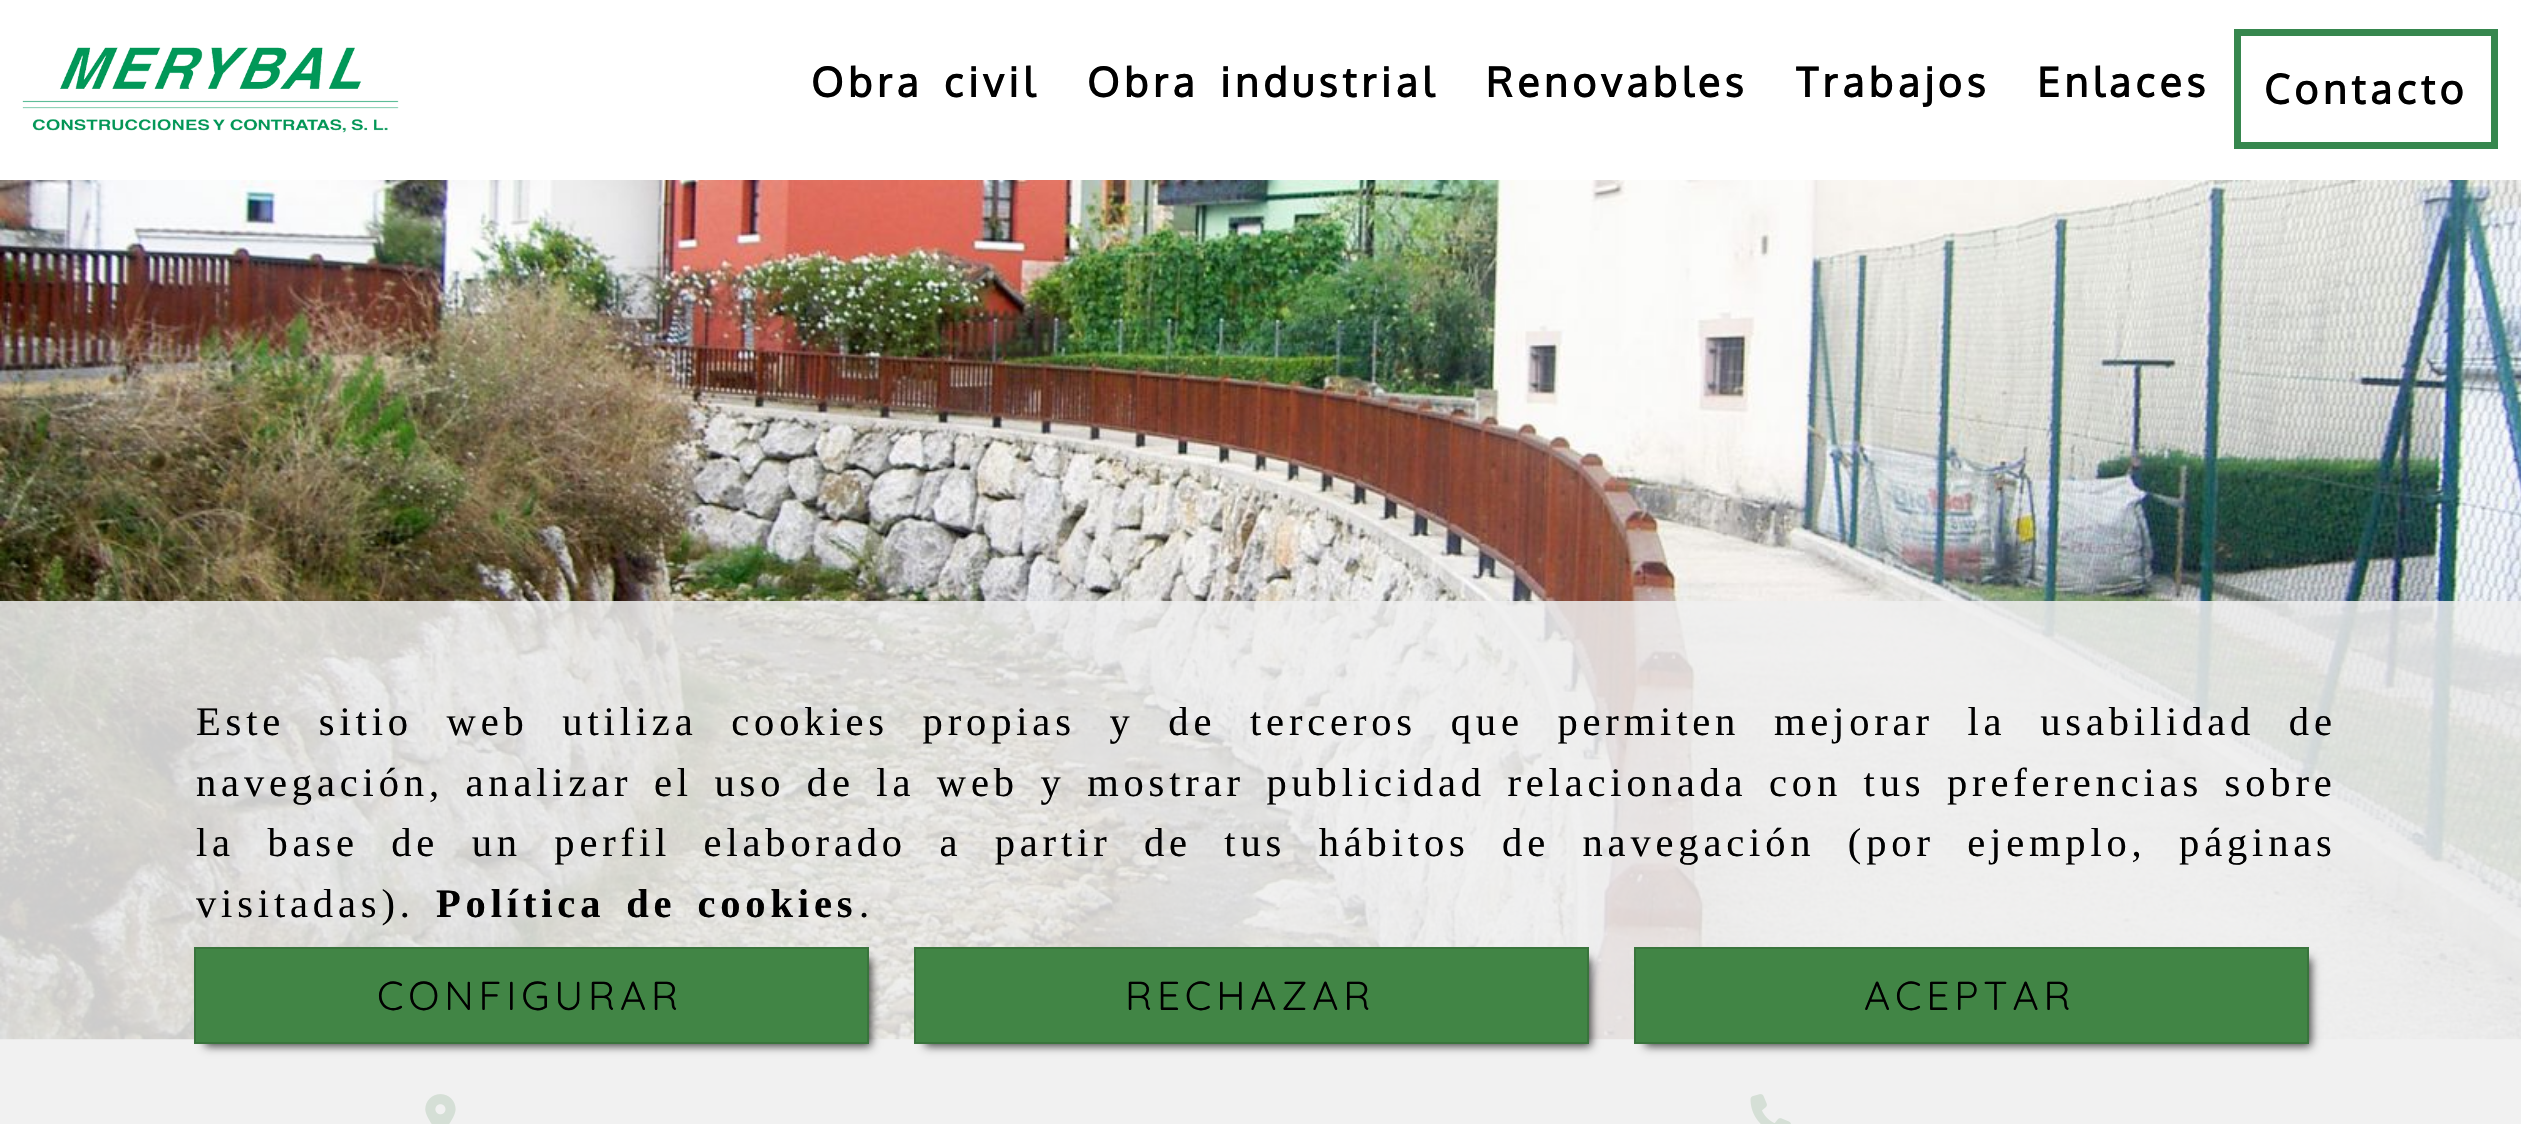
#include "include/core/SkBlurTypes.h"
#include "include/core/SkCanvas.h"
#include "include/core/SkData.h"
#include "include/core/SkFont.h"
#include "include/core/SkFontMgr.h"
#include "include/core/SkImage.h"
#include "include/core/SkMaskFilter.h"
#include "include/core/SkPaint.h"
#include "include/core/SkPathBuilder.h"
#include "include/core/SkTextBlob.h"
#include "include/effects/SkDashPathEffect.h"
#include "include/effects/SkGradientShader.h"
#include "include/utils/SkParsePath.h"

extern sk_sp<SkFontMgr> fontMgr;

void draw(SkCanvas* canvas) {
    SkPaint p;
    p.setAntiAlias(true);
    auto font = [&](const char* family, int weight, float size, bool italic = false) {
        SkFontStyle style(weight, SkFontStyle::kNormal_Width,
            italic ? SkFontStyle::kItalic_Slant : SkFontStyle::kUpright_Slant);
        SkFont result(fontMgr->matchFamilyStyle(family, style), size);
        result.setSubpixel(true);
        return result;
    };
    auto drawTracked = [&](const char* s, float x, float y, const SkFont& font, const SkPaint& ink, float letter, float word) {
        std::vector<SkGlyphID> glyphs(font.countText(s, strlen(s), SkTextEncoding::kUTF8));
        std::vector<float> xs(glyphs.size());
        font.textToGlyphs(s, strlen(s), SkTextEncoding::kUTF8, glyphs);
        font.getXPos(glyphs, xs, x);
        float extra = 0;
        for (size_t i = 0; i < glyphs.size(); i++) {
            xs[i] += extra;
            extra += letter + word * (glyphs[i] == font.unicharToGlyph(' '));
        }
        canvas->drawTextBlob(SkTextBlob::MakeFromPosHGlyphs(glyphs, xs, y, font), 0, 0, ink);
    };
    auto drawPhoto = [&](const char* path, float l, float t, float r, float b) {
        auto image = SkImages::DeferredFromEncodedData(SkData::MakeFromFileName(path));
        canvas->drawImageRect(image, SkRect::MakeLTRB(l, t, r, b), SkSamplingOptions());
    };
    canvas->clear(0xFFFFFFFF);
    drawPhoto("media/1.png", 22, 47, 399, 133);
    auto font1 = font("Oxygen", 700, 40.5f);
    p.setColor(0xFF000000);
    drawTracked("Obra civil", 811, 97, font1, p, 4.85f, 6);
    drawTracked("Obra industrial", 1087, 97, font1, p, 4.85f, 6);
    {
        const struct { const char* s; float x, y; } items[] = {
            {"Renovables", 1486, 97},
            {"Trabajos", 1796, 97},
            {"Enlaces", 2037, 97},
        };
        for (auto [s, x, y] : items) {
            drawTracked(s, x, y, font1, p, 4.85f, 0);
        }
    }
    p.setStyle(SkPaint::kStroke_Style);
    p.setStrokeWidth(7);
    p.setColor(0xFF36874E);
    canvas->drawRect(SkRect::MakeLTRB(2237.5f, 32.5f, 2494.5f, 145.5f), p);
    p.setStyle(SkPaint::kFill_Style);
    p.setColor(0xFF000000);
    drawTracked("Contacto", 2264, 104, font1, p, 4.85f, 0);
    drawPhoto("media/2.png", 0, 180, 2521, 1040);
    drawPhoto("media/3.png", 425, 1094, 456, 1124);
    drawPhoto("media/4.png", 1750, 1094, 1791, 1124);
    p.setColor(0xD9EEEEEE);
    canvas->drawRect(SkRect::MakeLTRB(0, 601, 2521, 1124), p);
    auto font2 = font("Liberation Serif", 400, 40.5f);
    p.setColor(0xFF000000);
    drawTracked("Este sitio web utiliza cookies propias y de terceros que permiten mejorar la usabilidad de", 196, 735, font2, p, 4.85f, 18.75f);
    drawTracked("navegación, analizar el uso de la web y mostrar publicidad relacionada con tus preferencias sobre", 196, 796, font2, p, 4.85f, 6.6f);
    drawTracked("la base de un perfil elaborado a partir de tus hábitos de navegación (por ejemplo, páginas", 196, 856, font2, p, 4.85f, 17.5f);
    drawTracked("visitadas).", 196, 917, font2, p, 4.85f, 0);
    auto font3 = font("Liberation Serif", 700, 40.5f);
    drawTracked("Política de cookies", 436, 917, font3, p, 4.85f, 6);
    drawTracked(".", 859, 917, font2, p, 4.85f, 0);
    p.setColor(0xBF000000);
    p.setMaskFilter(SkMaskFilter::MakeBlur(kNormal_SkBlurStyle, 4.5f));
    canvas->drawRect(SkRect::MakeLTRB(205, 959, 871, 1046), p);
    p.setMaskFilter(nullptr);
    p.setColor(0xFF418545);
    canvas->drawRect(SkRect::MakeLTRB(195, 948, 868, 1043), p);
    p.setStyle(SkPaint::kStroke_Style);
    p.setStrokeWidth(2);
    p.setColor(0xFF39743C);
    canvas->drawRect(SkRect::MakeLTRB(195, 948, 868, 1043), p);
    auto font4 = font("Quicksand", 400, 40.5f);
    p.setStyle(SkPaint::kFill_Style);
    p.setColor(0xFF000000);
    drawTracked("CONFIGURAR", 377, 1010, font4, p, 4.85f, 0);
    p.setColor(0xBF000000);
    p.setMaskFilter(SkMaskFilter::MakeBlur(kNormal_SkBlurStyle, 4.5f));
    canvas->drawRect(SkRect::MakeLTRB(925, 959, 1591, 1046), p);
    p.setMaskFilter(nullptr);
    p.setColor(0xFF418545);
    canvas->drawRect(SkRect::MakeLTRB(915, 948, 1588, 1043), p);
    p.setStyle(SkPaint::kStroke_Style);
    p.setColor(0xFF39743C);
    canvas->drawRect(SkRect::MakeLTRB(915, 948, 1588, 1043), p);
    p.setStyle(SkPaint::kFill_Style);
    p.setColor(0xFF000000);
    drawTracked("RECHAZAR", 1125, 1010, font4, p, 4.85f, 0);
    p.setColor(0xBF000000);
    p.setMaskFilter(SkMaskFilter::MakeBlur(kNormal_SkBlurStyle, 4.5f));
    canvas->drawRect(SkRect::MakeLTRB(1645, 959, 2311, 1046), p);
    p.setMaskFilter(nullptr);
    p.setColor(0xFF418545);
    canvas->drawRect(SkRect::MakeLTRB(1635, 948, 2308, 1043), p);
    p.setStyle(SkPaint::kStroke_Style);
    p.setColor(0xFF39743C);
    canvas->drawRect(SkRect::MakeLTRB(1635, 948, 2308, 1043), p);
    p.setStyle(SkPaint::kFill_Style);
    p.setColor(0xFF000000);
    drawTracked("ACEPTAR", 1864, 1010, font4, p, 4.85f, 0);
}
